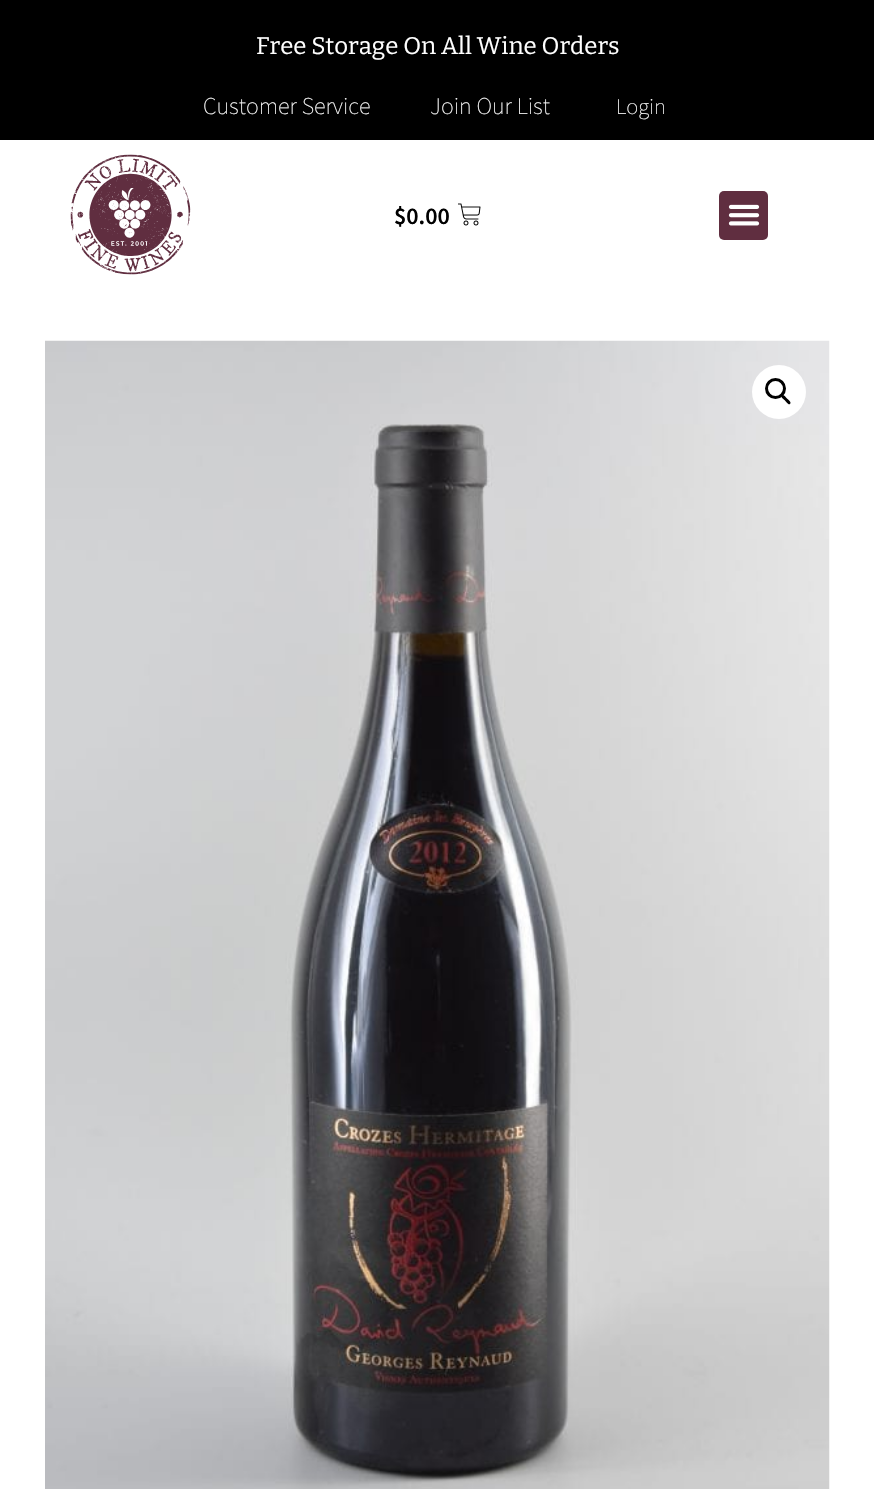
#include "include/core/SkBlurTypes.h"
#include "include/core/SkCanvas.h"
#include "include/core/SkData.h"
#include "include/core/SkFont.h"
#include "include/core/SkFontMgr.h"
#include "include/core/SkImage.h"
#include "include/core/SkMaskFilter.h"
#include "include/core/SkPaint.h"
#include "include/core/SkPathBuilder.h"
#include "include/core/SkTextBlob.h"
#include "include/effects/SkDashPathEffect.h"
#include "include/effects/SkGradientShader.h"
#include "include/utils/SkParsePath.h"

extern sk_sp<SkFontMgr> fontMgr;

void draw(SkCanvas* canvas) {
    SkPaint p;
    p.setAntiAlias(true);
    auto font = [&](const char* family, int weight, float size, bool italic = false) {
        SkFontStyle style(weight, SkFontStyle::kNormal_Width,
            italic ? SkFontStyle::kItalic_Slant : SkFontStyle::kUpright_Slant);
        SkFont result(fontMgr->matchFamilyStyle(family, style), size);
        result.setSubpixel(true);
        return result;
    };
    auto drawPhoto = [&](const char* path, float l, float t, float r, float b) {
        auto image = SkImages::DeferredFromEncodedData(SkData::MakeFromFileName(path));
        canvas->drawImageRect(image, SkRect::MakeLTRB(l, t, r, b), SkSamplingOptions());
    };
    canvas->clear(0xFFFFFFFF);
    p.setColor(0xFF000000);
    canvas->drawRect(SkRect::MakeLTRB(0, 0, 874, 140), p);
    auto font1 = font("Bitter", 400, 24);
    p.setColor(0xFFFFFFFF);
    canvas->drawString("Free Storage On All Wine Orders", 256, 54, font1, p);
    auto font2 = font("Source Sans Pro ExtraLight", 200, 24);
    canvas->drawString("Customer Service", 203, 114, font2, p);
    canvas->drawString("Join Our List", 430, 114, font2, p);
    auto font3 = font("Source Sans Pro ExtraLight", 200, 22.5f);
    canvas->drawString("Login", 616, 114, font3, p);
    drawPhoto("media/1.png", 70, 154, 191, 275);
    auto font4 = font("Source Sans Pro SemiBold", 600, 24);
    p.setColor(0xFF000000);
    canvas->drawString("$0.00", 394, 224, font4, p);
    drawPhoto("media/2.png", 458, 203, 481, 226);
    p.setColor(0xFF602E40);
    canvas->drawRoundRect(SkRect::MakeLTRB(719, 191, 768, 240), 5, 5, p);
    drawPhoto("media/3.png", 728, 204, 760, 226);
    drawPhoto("media/4.png", 45, 340, 830, 1489);
    p.setColor(0xFFFFFFFF);
    canvas->drawCircle(779, 392, 27, p);
    p.setStyle(SkPaint::kStroke_Style);
    p.setStrokeWidth(3);
    p.setColor(0xFF000000);
    canvas->drawCircle(775.5f, 388.5f, 9, p);
    p.setStyle(SkPaint::kFill_Style);
    canvas->drawPath(SkPathBuilder().moveTo(782, 395.5f).cubicTo(783.5f, 393.5f, 786, 397.5f, 787, 398.5f).cubicTo(788, 399.5f, 792, 402, 790, 404).cubicTo(788.5f, 405.5f, 786, 401.5f, 785, 400.5f).cubicTo(784, 399.5f, 780, 397, 782, 395.5f).close().detach(), p);
}
